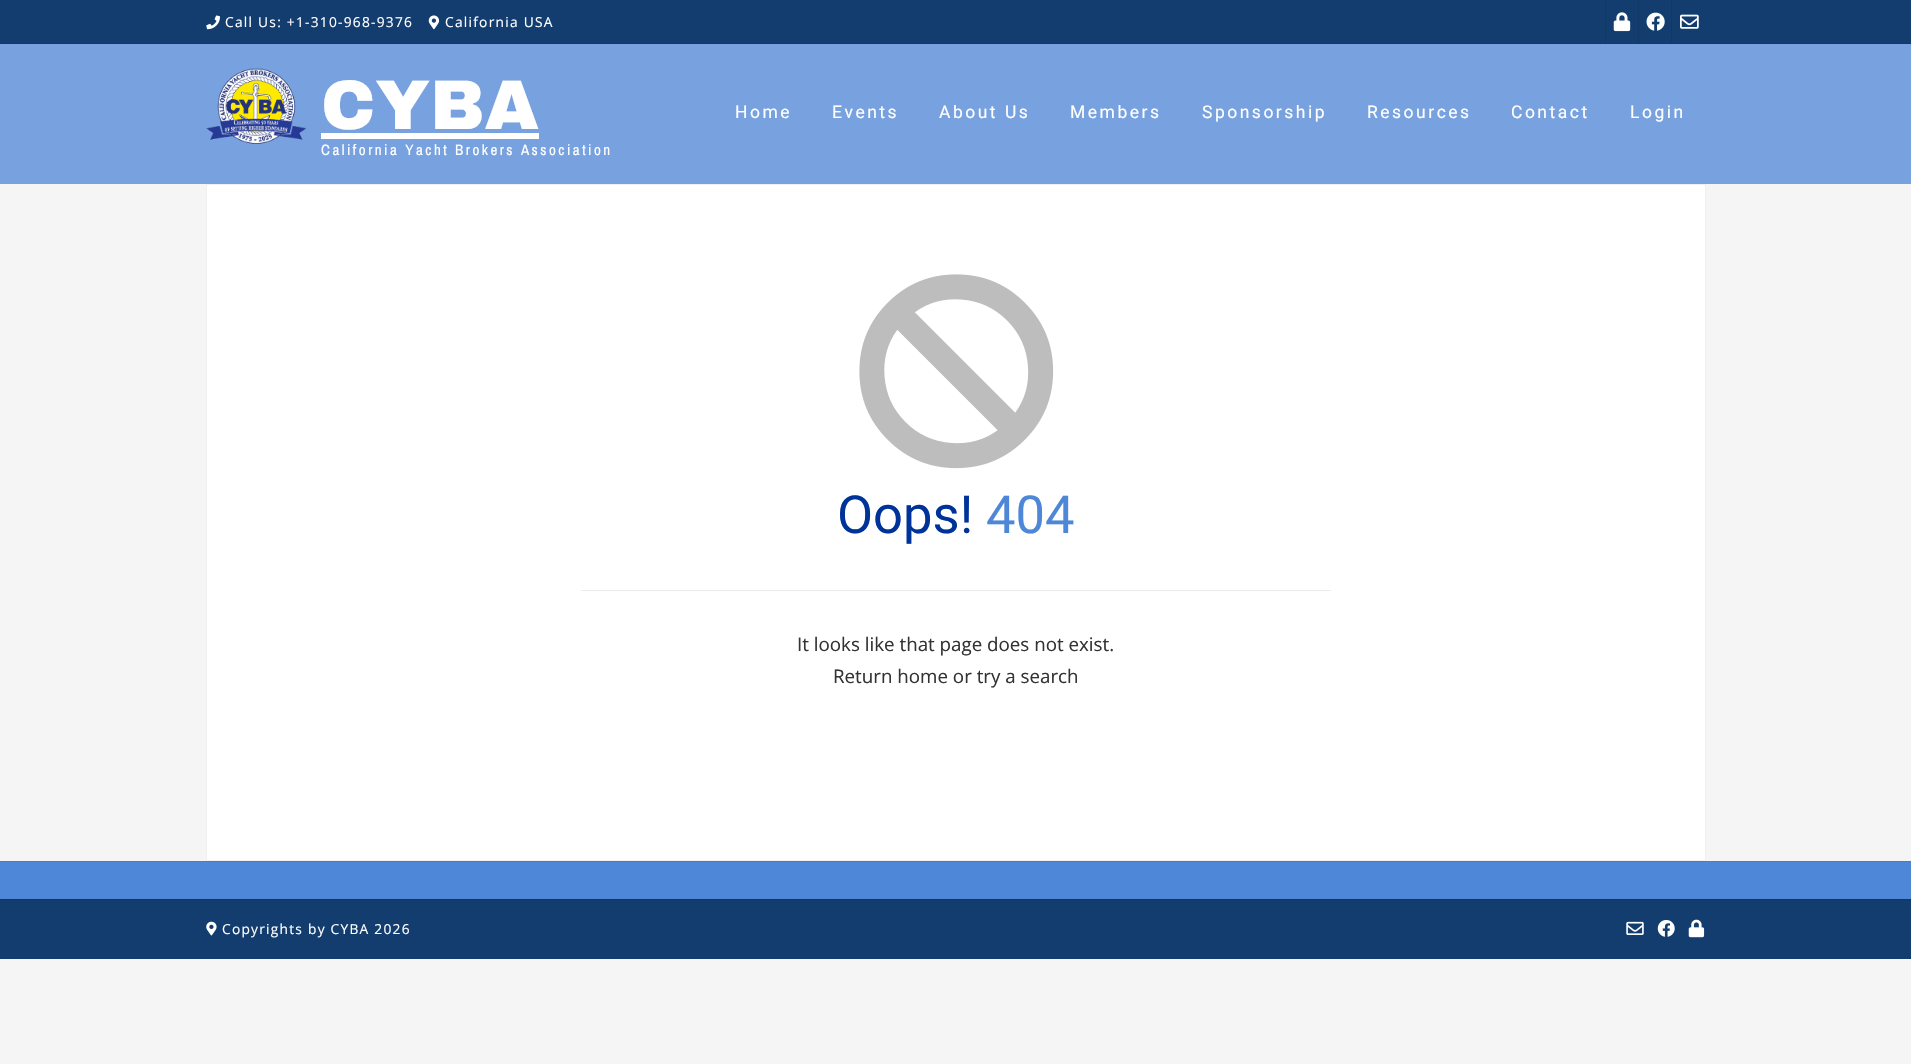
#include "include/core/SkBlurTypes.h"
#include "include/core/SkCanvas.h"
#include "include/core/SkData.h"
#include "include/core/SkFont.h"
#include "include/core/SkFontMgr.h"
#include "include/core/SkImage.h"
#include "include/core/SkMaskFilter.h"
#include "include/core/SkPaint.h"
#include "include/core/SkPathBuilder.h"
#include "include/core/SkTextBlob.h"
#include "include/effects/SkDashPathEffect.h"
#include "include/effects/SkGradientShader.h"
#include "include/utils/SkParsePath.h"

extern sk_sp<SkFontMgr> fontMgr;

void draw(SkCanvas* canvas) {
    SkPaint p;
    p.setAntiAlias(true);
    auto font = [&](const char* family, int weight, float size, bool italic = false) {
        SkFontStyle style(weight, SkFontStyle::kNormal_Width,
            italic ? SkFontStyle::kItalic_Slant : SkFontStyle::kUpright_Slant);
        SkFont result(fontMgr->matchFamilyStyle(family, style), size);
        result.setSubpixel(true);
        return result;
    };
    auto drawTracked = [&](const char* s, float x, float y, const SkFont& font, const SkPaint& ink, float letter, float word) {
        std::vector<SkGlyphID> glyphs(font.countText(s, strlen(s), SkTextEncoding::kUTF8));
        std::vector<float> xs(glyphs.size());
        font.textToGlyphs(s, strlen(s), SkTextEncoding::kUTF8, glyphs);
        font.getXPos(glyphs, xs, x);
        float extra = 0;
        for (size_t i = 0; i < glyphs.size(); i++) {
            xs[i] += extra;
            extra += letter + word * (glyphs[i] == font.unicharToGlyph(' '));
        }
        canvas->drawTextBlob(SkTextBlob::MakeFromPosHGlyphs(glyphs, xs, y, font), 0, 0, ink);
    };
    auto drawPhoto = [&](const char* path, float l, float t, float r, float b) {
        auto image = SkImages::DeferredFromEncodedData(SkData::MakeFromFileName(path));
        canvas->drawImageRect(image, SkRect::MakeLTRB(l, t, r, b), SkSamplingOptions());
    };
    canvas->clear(0xFFF5F5F5);
    p.setColor(0xFF133D6F);
    canvas->drawRect(SkRect::MakeLTRB(0, 0, 1911, 43), p);
    p.setColor(0xFF113866);
    canvas->drawRect(SkRect::MakeLTRB(0, 43, 1911, 44), p);
    drawPhoto("media/1.png", 206, 15, 220, 30);
    auto font1 = font("Open Sans", 400, 13.75f);
    p.setColor(0xFFFFFFFF);
    drawTracked("Call Us: +1-310-968-9376", 225, 27, font1, p, 1.25f, 0);
    drawPhoto("media/2.png", 428, 15, 440, 30);
    drawTracked("California USA", 445, 27, font1, p, 1.25f, 0);
    p.setColor(0x14000000);
    canvas->drawPath(SkPathBuilder().moveTo(1605, 0).lineTo(1605, 44).lineTo(1638, 44).lineTo(1606, 44).lineTo(1606, 0).close().detach(), p);
    drawPhoto("media/3.png", 1613, 12, 1631, 32);
    canvas->drawPath(SkPathBuilder().moveTo(1638, 0).lineTo(1638, 44).lineTo(1671, 44).lineTo(1639, 44).lineTo(1639, 0).close().detach(), p);
    drawPhoto("media/4.png", 1646, 12, 1665, 31);
    canvas->drawPath(SkPathBuilder().moveTo(1671, 0).lineTo(1671, 44).lineTo(1705, 44).lineTo(1672, 44).lineTo(1672, 0).close().detach(), p);
    drawPhoto("media/5.png", 1680, 14, 1699, 29);
    p.setColor(0xFF78A2DF);
    canvas->drawRect(SkRect::MakeLTRB(0, 44, 1911, 184), p);
    drawPhoto("media/6.png", 206, 68, 307, 144);
    auto font2 = font("Archivo Black", 900, 70);
    p.setColor(0xFFFFFFFF);
    canvas->drawString("CYBA", 321, 129, font2, p);
    canvas->drawRect(SkRect::MakeLTRB(321, 133, 539, 139), p);
    auto font3 = font("Archivo Narrow", 400, 15);
    drawTracked("California Yacht Brokers Association", 321, 155, font3, p, 2.5f, 0);
    auto font4 = font("Roboto", 400, 17.5f);
    {
        const struct { const char* s; float x, y; } items[] = {
            {"Home", 735, 118},
            {"Events", 832, 118},
            {"About Us", 939, 118},
            {"Members", 1070, 118},
            {"Sponsorship", 1202, 118},
            {"Resources", 1367, 118},
            {"Contact", 1511, 118},
            {"Login", 1630, 118},
        };
        for (auto [s, x, y] : items) {
            drawTracked(s, x, y, font4, p, 2.5f, 0);
        }
    }
    canvas->drawRect(SkRect::MakeLTRB(206.5f, 184.5f, 1705.5f, 860.5f), p);
    p.setStyle(SkPaint::kStroke_Style);
    p.setStrokeWidth(1);
    p.setColor(0xFFF0F0F0);
    canvas->drawRect(SkRect::MakeLTRB(206.5f, 184.5f, 1705.5f, 860.5f), p);
    drawPhoto("media/7.png", 859, 274, 1054, 469);
    p.setStyle(SkPaint::kFill_Style);
    p.setColor(0xFFEBEBEB);
    canvas->drawRect(SkRect::MakeLTRB(581, 590, 1331, 591), p);
    auto font5 = font("Roboto", 400, 52.5f);
    p.setColor(0xFF003399);
    canvas->drawString("Oops!", 837, 533, font5, p);
    p.setColor(0xFF4E87D8);
    canvas->drawString("404", 986, 533, font5, p);
    auto font6 = font("Open Sans", 400, 18.75f);
    p.setColor(0xFF333333);
    canvas->drawString("It looks like that page does not exist.", 797, 651, font6, p);
    canvas->drawString("Return home or try a search", 833, 683, font6, p);
    {
        const struct { float l, t, r, b; SkColor color; } items[] = {
            {0, 862, 1911, 899, 0xFF4E87D8},
            {0, 861, 1911, 862, 0xFF487CC7},
            {0, 900, 1911, 959, 0xFF133D6F},
            {0, 899, 1911, 900, 0xFF113662},
        };
        for (auto [l, t, r, b, color] : items) {
            p.setColor(color);
            canvas->drawRect(SkRect::MakeLTRB(l, t, r, b), p);
        }
    }
    drawPhoto("media/8.png", 206, 921, 217, 936);
    p.setColor(0xFFFFFFFF);
    drawTracked("Copyrights by CYBA 2026", 222, 934, font1, p, 1.25f, 0);
    drawPhoto("media/9.png", 1626, 921, 1644, 935);
    drawPhoto("media/10.png", 1657, 920, 1675, 937);
    drawPhoto("media/11.png", 1688, 919, 1705, 938);
}
